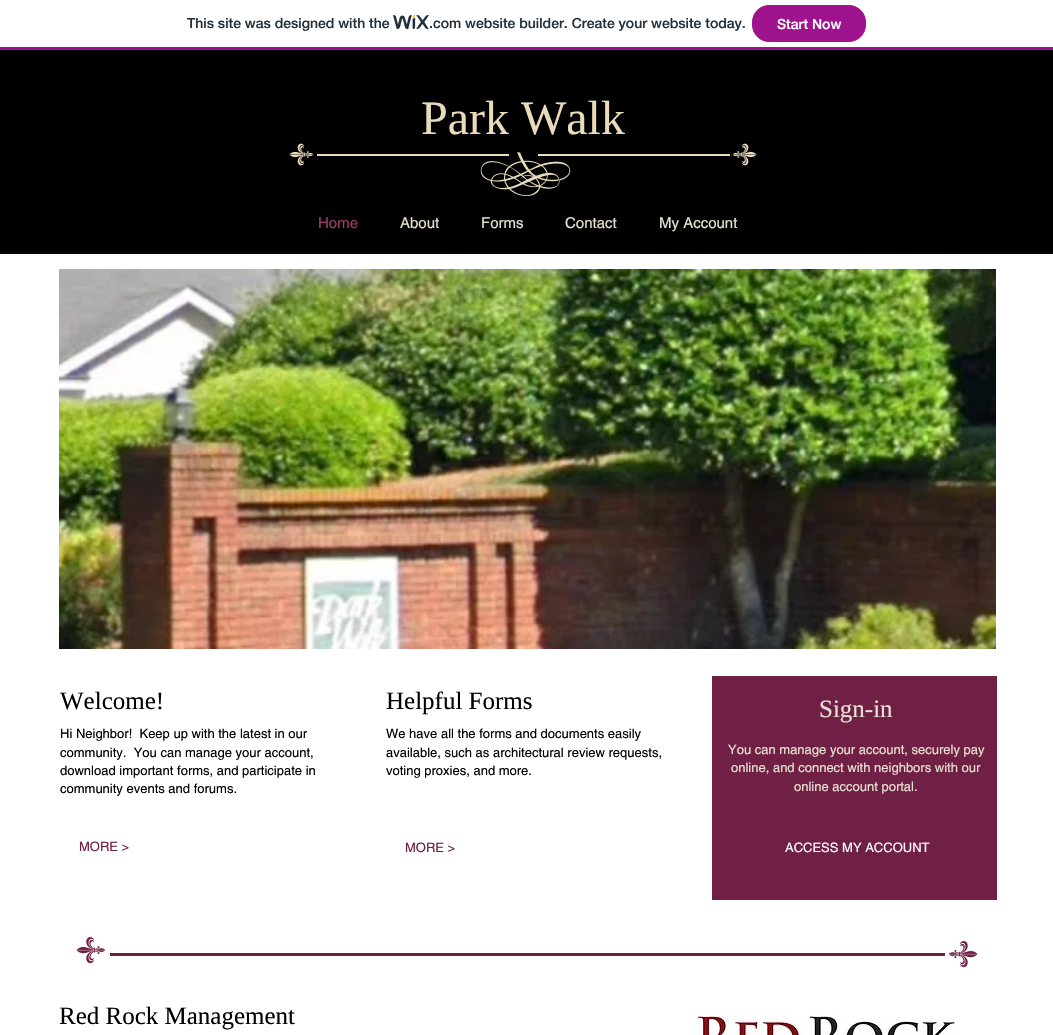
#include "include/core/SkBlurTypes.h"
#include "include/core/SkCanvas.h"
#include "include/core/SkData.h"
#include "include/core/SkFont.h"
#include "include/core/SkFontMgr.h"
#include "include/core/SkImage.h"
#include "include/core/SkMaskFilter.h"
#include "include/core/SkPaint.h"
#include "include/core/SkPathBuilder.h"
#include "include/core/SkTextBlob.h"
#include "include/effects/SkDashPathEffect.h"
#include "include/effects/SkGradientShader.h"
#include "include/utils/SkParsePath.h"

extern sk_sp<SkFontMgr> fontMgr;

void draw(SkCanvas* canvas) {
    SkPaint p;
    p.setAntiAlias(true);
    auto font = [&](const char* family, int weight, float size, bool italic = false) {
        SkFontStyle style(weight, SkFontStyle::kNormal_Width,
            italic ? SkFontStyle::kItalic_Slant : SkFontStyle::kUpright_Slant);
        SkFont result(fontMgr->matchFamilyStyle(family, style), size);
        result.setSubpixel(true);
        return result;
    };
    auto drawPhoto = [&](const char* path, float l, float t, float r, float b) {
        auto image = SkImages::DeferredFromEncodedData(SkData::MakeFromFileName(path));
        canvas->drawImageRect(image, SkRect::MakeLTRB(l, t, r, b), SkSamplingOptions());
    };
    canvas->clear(0xFFFFFFFF);
    p.setColor(0xFFA0138E);
    canvas->drawRect(SkRect::MakeLTRB(0, 47, 1053, 50), p);
    auto font1 = font("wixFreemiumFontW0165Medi", 500, 14);
    p.setColor(0xFF20303C);
    canvas->drawString("This site was designed with the", 187, 28, font1, p);
    drawPhoto("media/1.png", 393, 15, 429, 30);
    canvas->drawString(".com website builder. Create your website today.", 429, 28, font1, p);
    p.setColor(0xFFA0138E);
    canvas->drawRoundRect(SkRect::MakeLTRB(752.5f, 5.5f, 865.5f, 41.5f), 16.5f, 16.5f, p);
    p.setStyle(SkPaint::kStroke_Style);
    p.setStrokeWidth(1);
    canvas->drawRoundRect(SkRect::MakeLTRB(752.5f, 5.5f, 865.5f, 41.5f), 16.5f, 16.5f, p);
    p.setStyle(SkPaint::kFill_Style);
    p.setColor(0xFFFFFFFF);
    canvas->drawString("Start Now", 777, 29, font1, p);
    p.setColor(0xFF000000);
    canvas->drawRect(SkRect::MakeLTRB(0, 50, 1053, 254), p);
    auto font2 = font("Liberation Serif", 400, 48);
    p.setColor(0xFFEADCBB);
    canvas->drawString("Park Walk", 421, 134, font2, p);
    drawPhoto("media/2.png", 289, 143, 314, 166);
    drawPhoto("media/3.png", 480, 152, 571, 196);
    canvas->drawRect(SkRect::MakeLTRB(317, 154, 509, 156), p);
    canvas->drawRect(SkRect::MakeLTRB(538, 154, 730, 156), p);
    drawPhoto("media/4.png", 732, 143, 757, 166);
    auto font3 = font("helvetica", 400, 15);
    p.setColor(0xFF9E3C6B);
    canvas->drawString("Home", 318, 228, font3, p);
    p.setColor(0xFFE8E1D3);
    {
        const struct { const char* s; float x, y; } items[] = {
            {"About", 400, 228},
            {"Forms", 481, 228},
            {"Contact", 565, 228},
            {"My Account", 659, 228},
        };
        for (auto [s, x, y] : items) {
            canvas->drawString(s, x, y, font3, p);
        }
    }
    drawPhoto("media/5.png", 59, 269, 996, 649);
    auto font4 = font("Liberation Serif", 400, 25);
    p.setColor(0xFF000000);
    canvas->drawString("Welcome!", 60, 709, font4, p);
    auto font5 = font("helvetica", 400, 13);
    {
        const struct { const char* s; float x, y; } items[] = {
            {"Hi Neighbor!  Keep up with the latest in our", 60, 738},
            {"community.  You can manage your account,", 60, 757},
            {"download important forms, and participate in", 60, 775},
            {"community events and forums.", 60, 793},
        };
        for (auto [s, x, y] : items) {
            canvas->drawString(s, x, y, font5, p);
        }
    }
    canvas->drawString("Helpful Forms", 386, 709, font4, p);
    {
        const struct { const char* s; float x, y; } items[] = {
            {"We have all the forms and documents easily", 386, 738},
            {"available, such as architectural review requests,", 386, 757},
            {"voting proxies, and more.", 386, 775},
        };
        for (auto [s, x, y] : items) {
            canvas->drawString(s, x, y, font5, p);
        }
    }
    p.setColor(0xFF702045);
    canvas->drawRect(SkRect::MakeLTRB(712, 676, 997, 900), p);
    p.setColor(0xFFE8E1D3);
    canvas->drawString("Sign-in", 819, 717, font4, p);
    {
        const struct { const char* s; float x, y; } items[] = {
            {"You can manage your account, securely pay", 728, 754},
            {"online, and connect with neighbors with our", 731, 772},
            {"online account portal.", 794, 791},
        };
        for (auto [s, x, y] : items) {
            canvas->drawString(s, x, y, font5, p);
        }
    }
    p.setColor(0xFFFFFFFF);
    canvas->drawString("ACCESS MY ACCOUNT", 785, 852, font5, p);
    p.setColor(0xFF702045);
    canvas->drawString("MORE >", 79, 851, font5, p);
    canvas->drawString("MORE >", 405, 852, font5, p);
    drawPhoto("media/6.png", 76, 937, 106, 964);
    canvas->drawRect(SkRect::MakeLTRB(110, 953, 945, 956), p);
    drawPhoto("media/7.png", 948, 941, 978, 968);
    p.setColor(0xFF000000);
    canvas->drawString("Red Rock Management", 59, 1024, font4, p);
    drawPhoto("media/8.png", 695, 1015, 955, 1035);
}
